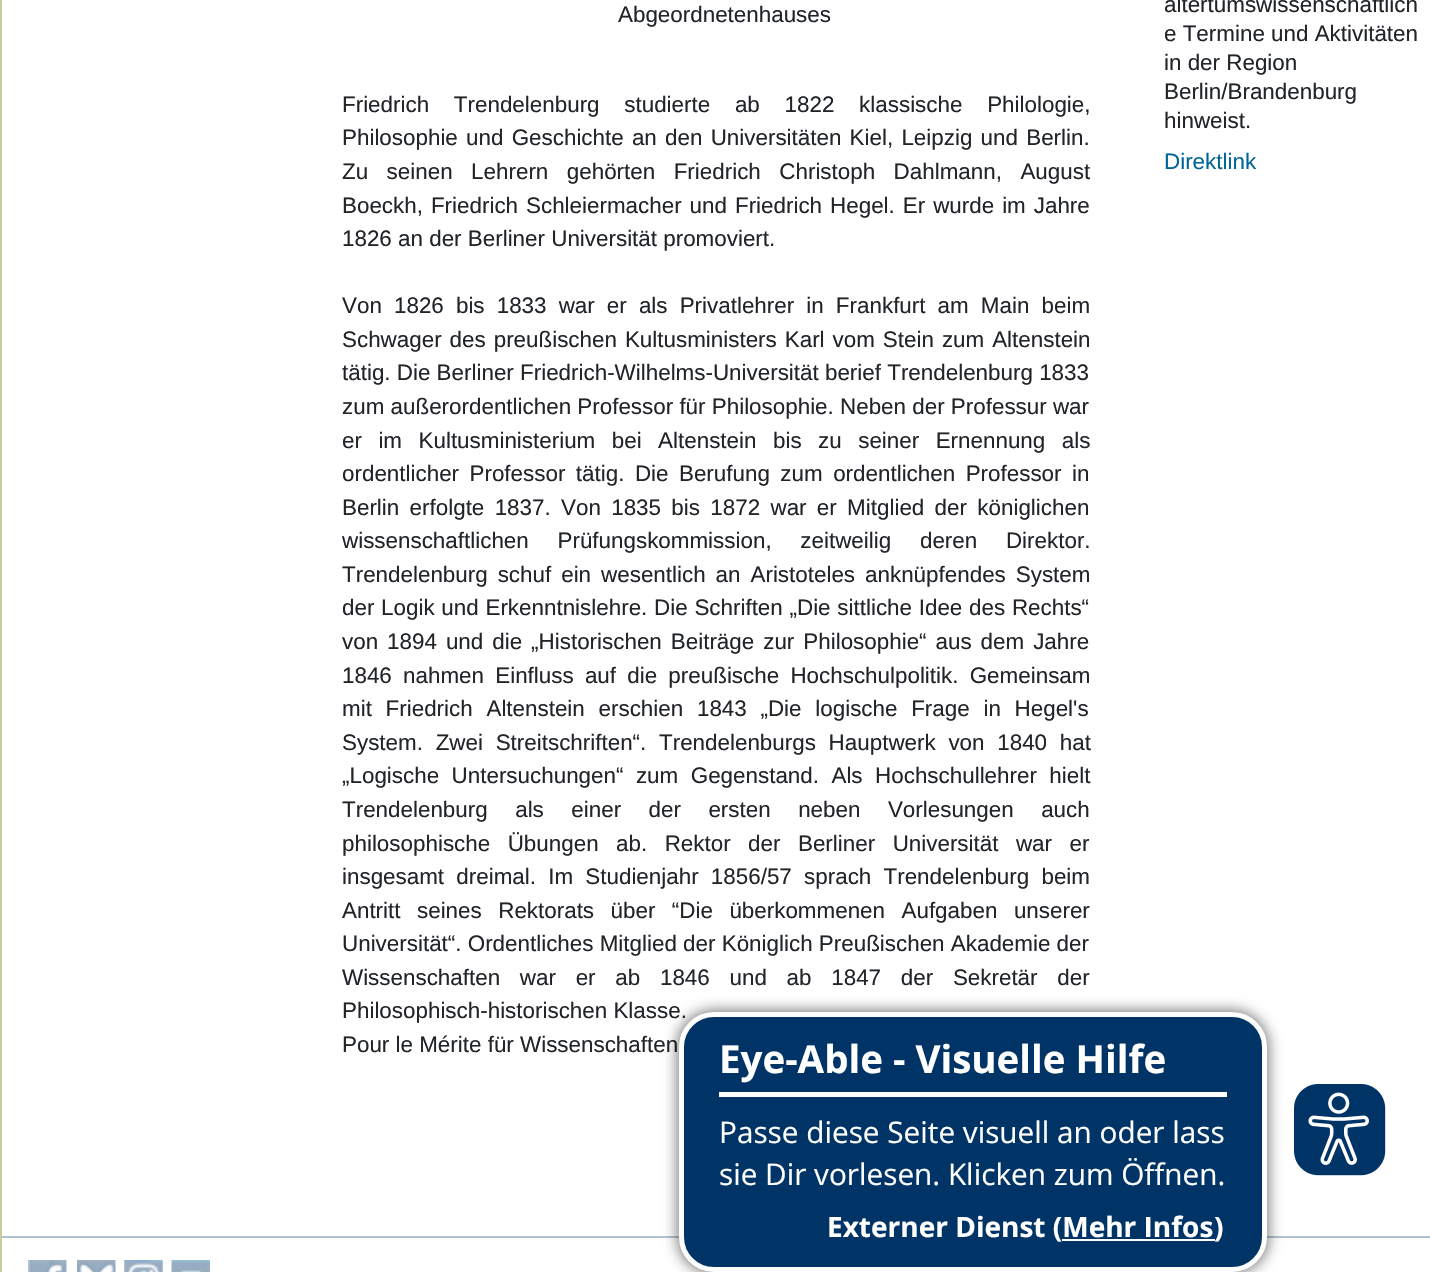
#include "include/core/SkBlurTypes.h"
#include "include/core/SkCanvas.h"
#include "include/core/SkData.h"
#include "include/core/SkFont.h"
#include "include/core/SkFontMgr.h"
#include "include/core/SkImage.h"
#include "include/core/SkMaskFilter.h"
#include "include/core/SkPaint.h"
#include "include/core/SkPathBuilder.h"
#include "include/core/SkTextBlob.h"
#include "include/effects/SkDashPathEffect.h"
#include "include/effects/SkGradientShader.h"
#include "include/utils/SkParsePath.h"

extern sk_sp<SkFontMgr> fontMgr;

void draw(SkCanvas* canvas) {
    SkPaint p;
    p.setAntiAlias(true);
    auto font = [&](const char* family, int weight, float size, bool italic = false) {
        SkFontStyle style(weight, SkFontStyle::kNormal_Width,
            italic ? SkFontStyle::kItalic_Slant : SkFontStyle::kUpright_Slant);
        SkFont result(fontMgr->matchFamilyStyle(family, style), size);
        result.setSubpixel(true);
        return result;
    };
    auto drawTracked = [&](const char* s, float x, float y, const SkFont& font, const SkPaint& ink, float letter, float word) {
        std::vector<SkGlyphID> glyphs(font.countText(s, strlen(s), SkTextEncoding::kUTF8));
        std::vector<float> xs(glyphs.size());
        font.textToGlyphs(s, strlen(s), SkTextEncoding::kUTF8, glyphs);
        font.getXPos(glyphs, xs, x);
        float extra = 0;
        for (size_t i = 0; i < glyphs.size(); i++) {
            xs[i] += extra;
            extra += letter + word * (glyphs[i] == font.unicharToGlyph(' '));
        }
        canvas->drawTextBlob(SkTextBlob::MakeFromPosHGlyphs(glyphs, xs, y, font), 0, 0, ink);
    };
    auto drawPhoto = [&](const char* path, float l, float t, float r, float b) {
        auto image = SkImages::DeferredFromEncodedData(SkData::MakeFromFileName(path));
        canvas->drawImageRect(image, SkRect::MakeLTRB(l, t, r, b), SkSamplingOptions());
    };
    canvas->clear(0xFFFFFFFF);
    p.setColor(0xFFCCCC99);
    canvas->drawRect(SkRect::MakeLTRB(0, 0, 2, 1272), p);
    auto font1 = font("Liberation Sans", 400, 22.4f);
    p.setColor(0xFF212529);
    canvas->drawString("Abgeordnetenhauses", 618, 22, font1, p);
    drawTracked("Friedrich Trendelenburg studierte ab 1822 klassische Philologie,", 342, 112, font1, p, 0, 18.5f);
    drawTracked("Philosophie und Geschichte an den Universitäten Kiel, Leipzig und Berlin.", 342, 145, font1, p, 0, 2);
    drawTracked("Zu seinen Lehrern gehörten Friedrich Christoph Dahlmann, August", 342, 179, font1, p, 0, 12.25f);
    drawTracked("Boeckh, Friedrich Schleiermacher und Friedrich Hegel. Er wurde im Jahre", 342, 213, font1, p, 0, 1.75f);
    canvas->drawString("1826 an der Berliner Universität promoviert.", 342, 246, font1, p);
    drawTracked("Von 1826 bis 1833 war er als Privatlehrer in Frankfurt am Main beim", 342, 313, font1, p, 0, 5.9f);
    drawTracked("Schwager des preußischen Kultusministers Karl vom Stein zum Altenstein", 342, 347, font1, p, 0, 1.75f);
    canvas->drawString("tätig. Die Berliner Friedrich-Wilhelms-Universität berief Trendelenburg 1833", 342, 380, font1, p);
    canvas->drawString("zum außerordentlichen Professor für Philosophie. Neben der Professur war", 342, 414, font1, p);
    drawTracked("er im Kultusministerium bei Altenstein bis zu seiner Ernennung als", 342, 448, font1, p, 0, 10.25f);
    drawTracked("ordentlicher Professor tätig. Die Berufung zum ordentlichen Professor in", 342, 481, font1, p, 0, 4.25f);
    drawTracked("Berlin erfolgte 1837. Von 1835 bis 1872 war er Mitglied der königlichen", 342, 515, font1, p, 0, 4.1f);
    drawTracked("wissenschaftlichen Prüfungskommission, zeitweilig deren Direktor.", 342, 548, font1, p, 0, 22.5f);
    drawTracked("Trendelenburg schuf ein wesentlich an Aristoteles anknüpfendes System", 342, 582, font1, p, 0, 3.75f);
    drawTracked("der Logik und Erkenntnislehre. Die Schriften „Die sittliche Idee des Rechts“", 342, 615, font1, p, 0, 0.5f);
    drawTracked("von 1894 und die „Historischen Beiträge zur Philosophie“ aus dem Jahre", 342, 649, font1, p, 0, 2.75f);
    drawTracked("1846 nahmen Einfluss auf die preußische Hochschulpolitik. Gemeinsam", 342, 683, font1, p, 0, 5);
    drawTracked("mit Friedrich Altenstein erschien 1843 „Die logische Frage in Hegel's", 342, 716, font1, p, 0, 7.5f);
    drawTracked("System. Zwei Streitschriften“. Trendelenburgs Hauptwerk von 1840 hat", 342, 750, font1, p, 0, 6.5f);
    drawTracked("„Logische Untersuchungen“ zum Gegenstand. Als Hochschullehrer hielt", 342, 783, font1, p, 0, 6.25f);
    drawTracked("Trendelenburg als einer der ersten neben Vorlesungen auch", 342, 817, font1, p, 0, 21.25f);
    drawTracked("philosophische Übungen ab. Rektor der Berliner Universität war er", 342, 851, font1, p, 0, 11.25f);
    drawTracked("insgesamt dreimal. Im Studienjahr 1856/57 sprach Trendelenburg beim", 342, 884, font1, p, 0, 6);
    drawTracked("Antritt seines Rektorats über “Die überkommenen Aufgaben unserer", 342, 918, font1, p, 0, 10.25f);
    canvas->drawString("Universität“. Ordentliches Mitglied der Königlich Preußischen Akademie der", 342, 951, font1, p);
    drawTracked("Wissenschaften war er ab 1846 und ab 1847 der Sekretär der", 342, 985, font1, p, 0, 13.5f);
    {
        const struct { const char* s; float x, y; } items[] = {
            {"Philosophisch-historischen Klasse.", 342, 1018},
            {"Pour le Mérite für Wissenschaften", 342, 1052},
            {"altertumswissenschaftlich", 1164, 12},
            {"e Termine und Aktivitäten", 1164, 41},
            {"in der Region", 1164, 70},
            {"Berlin/Brandenburg", 1164, 99},
            {"hinweist.", 1164, 128},
        };
        for (auto [s, x, y] : items) {
            canvas->drawString(s, x, y, font1, p);
        }
    }
    p.setColor(0xFF006699);
    canvas->drawString("Direktlink", 1164, 169, font1, p);
    p.setColor(0xFFB2C1D1);
    canvas->drawRect(SkRect::MakeLTRB(2, 1236, 1430, 1238), p);
    p.setColor(0x80000000);
    p.setMaskFilter(SkMaskFilter::MakeBlur(kNormal_SkBlurStyle, 7));
    canvas->drawRoundRect(SkRect::MakeLTRB(677, 1010, 1269, 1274), 37, 37, p);
    p.setMaskFilter(nullptr);
    p.setColor(0xFF003366);
    canvas->drawRoundRect(SkRect::MakeLTRB(681.5f, 1014.5f, 1264.5f, 1269.5f), 32.5f, 32.5f, p);
    p.setStyle(SkPaint::kStroke_Style);
    p.setStrokeWidth(5);
    p.setColor(0xFFFFFFFF);
    canvas->drawRoundRect(SkRect::MakeLTRB(681.5f, 1014.5f, 1264.5f, 1269.5f), 32.5f, 32.5f, p);
    p.setStyle(SkPaint::kFill_Style);
    canvas->drawRect(SkRect::MakeLTRB(719, 1092, 1227, 1097), p);
    auto font2 = font("Open Sans", 700, 38.5f);
    canvas->drawString("Eye-Able - Visuelle Hilfe", 719, 1073, font2, p);
    auto font3 = font("Open Sans", 400, 29.75f);
    canvas->drawString("Passe diese Seite visuell an oder lass", 719, 1143, font3, p);
    canvas->drawString("sie Dir vorlesen. Klicken zum Öffnen.", 719, 1185, font3, p);
    auto font4 = font("Open Sans", 700, 28);
    canvas->drawString("Externer Dienst (Mehr Infos", 827, 1237, font4, p);
    canvas->drawRect(SkRect::MakeLTRB(1062, 1239, 1215, 1241), p);
    canvas->drawString(")", 1214, 1237, font4, p);
    drawPhoto("media/1.png", 1294, 1084, 1386, 1176);
    drawPhoto("media/2.png", 28, 1260, 67, 1272);
    drawPhoto("media/3.png", 77, 1260, 116, 1272);
    drawPhoto("media/4.png", 124, 1260, 163, 1272);
    drawPhoto("media/5.png", 171, 1260, 210, 1272);
}
